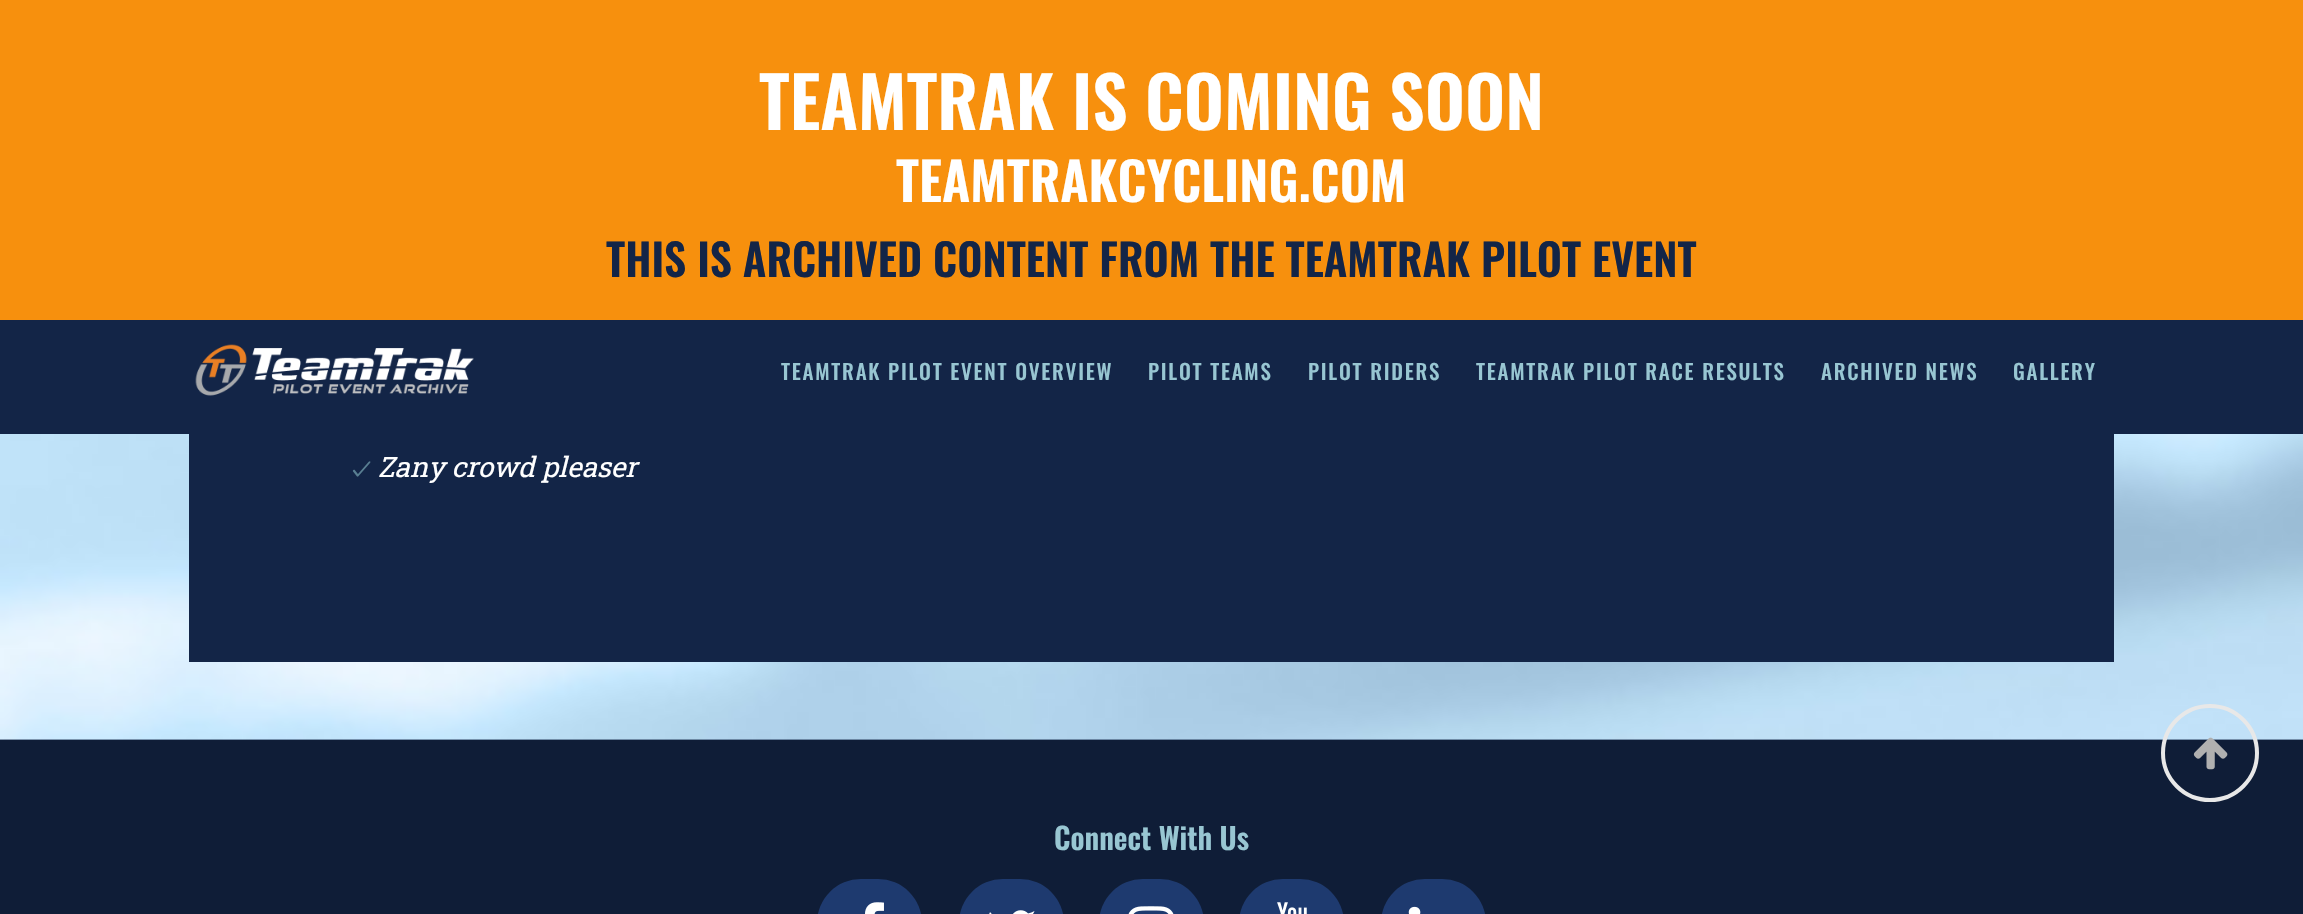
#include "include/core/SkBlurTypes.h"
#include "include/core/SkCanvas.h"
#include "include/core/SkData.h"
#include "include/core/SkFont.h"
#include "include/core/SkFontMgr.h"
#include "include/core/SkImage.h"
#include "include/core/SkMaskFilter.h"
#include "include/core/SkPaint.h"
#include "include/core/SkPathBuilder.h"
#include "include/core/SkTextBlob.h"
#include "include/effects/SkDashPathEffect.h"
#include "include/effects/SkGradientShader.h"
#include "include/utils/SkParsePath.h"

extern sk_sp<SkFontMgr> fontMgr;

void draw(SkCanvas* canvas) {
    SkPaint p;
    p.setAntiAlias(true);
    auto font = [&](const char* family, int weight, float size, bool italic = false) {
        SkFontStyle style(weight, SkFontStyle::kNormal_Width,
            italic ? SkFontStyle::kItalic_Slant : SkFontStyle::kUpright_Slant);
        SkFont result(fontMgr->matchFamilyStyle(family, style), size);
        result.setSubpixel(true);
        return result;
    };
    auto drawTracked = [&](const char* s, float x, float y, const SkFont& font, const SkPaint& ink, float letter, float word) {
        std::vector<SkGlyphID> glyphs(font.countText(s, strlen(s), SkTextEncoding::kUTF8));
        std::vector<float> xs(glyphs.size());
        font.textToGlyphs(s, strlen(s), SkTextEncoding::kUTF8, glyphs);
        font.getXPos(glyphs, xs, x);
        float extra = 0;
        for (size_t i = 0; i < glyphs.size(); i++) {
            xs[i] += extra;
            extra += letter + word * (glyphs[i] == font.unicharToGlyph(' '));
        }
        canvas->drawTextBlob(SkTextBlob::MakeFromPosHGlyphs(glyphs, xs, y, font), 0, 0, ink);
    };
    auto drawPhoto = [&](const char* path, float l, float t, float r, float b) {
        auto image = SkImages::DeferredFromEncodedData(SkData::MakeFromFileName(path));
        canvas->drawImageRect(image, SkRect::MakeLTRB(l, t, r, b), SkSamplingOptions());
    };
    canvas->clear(0xFF132547);
    p.setColor(0xFFF7900D);
    canvas->drawRect(SkRect::MakeLTRB(0, 0, 2303, 320), p);
    auto font1 = font("Oswald", 600, 70);
    p.setColor(0xFFFFFFFF);
    canvas->drawString("TEAMTRAK IS COMING SOON", 759, 130, font1, p);
    auto font2 = font("Oswald", 600, 52.5f);
    canvas->drawString("TEAMTRAKCYCLING.COM", 896, 202, font2, p);
    auto font3 = font("Oswald", 600, 43.75f);
    p.setColor(0xFF132547);
    canvas->drawString("THIS IS ARCHIVED CONTENT FROM THE TEAMTRAK PILOT EVENT", 606, 277, font3, p);
    drawPhoto("media/1.png", 195, 344, 474, 396);
    auto font4 = font("Oswald", 500, 21);
    p.setColor(0xFF98C6D2);
    {
        const struct { const char* s; float x, y; } items[] = {
            {"TEAMTRAK PILOT EVENT OVERVIEW", 781, 380},
            {"PILOT TEAMS", 1148, 380},
            {"PILOT RIDERS", 1308, 380},
            {"TEAMTRAK PILOT RACE RESULTS", 1476, 380},
            {"ARCHIVED NEWS", 1821, 380},
            {"GALLERY", 2013, 380},
        };
        for (auto [s, x, y] : items) {
            drawTracked(s, x, y, font4, p, 1.75f, 0);
        }
    }
    drawPhoto("media/2.png", 0, 434, 2303, 740);
    p.setColor(0xFF132547);
    canvas->drawRect(SkRect::MakeLTRB(189, 434, 2114, 662), p);
    drawPhoto("media/3.png", 352, 461, 371, 477);
    auto font5 = font("Roboto Slab", 400, 28, true);
    p.setColor(0xFFFFFFFF);
    canvas->drawString("Zany crowd pleaser", 378, 477, font5, p);
    p.setColor(0xFF0F1D37);
    canvas->drawRect(SkRect::MakeLTRB(0, 740, 2303, 914), p);
    p.setStyle(SkPaint::kStroke_Style);
    p.setStrokeWidth(4);
    p.setColor(0xFFE8E8E8);
    canvas->drawCircle(2210, 753, 47, p);
    drawPhoto("media/4.png", 2193, 737, 2228, 770);
    auto font6 = font("Oswald", 600, 29.75f);
    p.setStyle(SkPaint::kFill_Style);
    p.setColor(0xFF98C6D2);
    canvas->drawString("Connect With Us", 1054, 850, font6, p);
    p.setColor(0xFF1E3A6F);
    canvas->drawRoundRect(SkRect::MakeLTRB(817, 879, 922, 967), 52.5f, 52.5f, p);
    drawPhoto("media/5.png", 865, 902, 884, 914);
    canvas->drawRoundRect(SkRect::MakeLTRB(959, 879, 1064, 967), 52.5f, 52.5f, p);
    drawPhoto("media/6.png", 989, 910, 1035, 914);
    canvas->drawRoundRect(SkRect::MakeLTRB(1099, 879, 1204, 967), 52.5f, 52.5f, p);
    drawPhoto("media/7.png", 1128, 906, 1174, 914);
    canvas->drawRoundRect(SkRect::MakeLTRB(1239, 879, 1344, 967), 52.5f, 52.5f, p);
    drawPhoto("media/8.png", 1277, 902, 1307, 914);
    canvas->drawRoundRect(SkRect::MakeLTRB(1381, 879, 1486, 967), 52.5f, 52.5f, p);
    drawPhoto("media/9.png", 1408, 906, 1421, 914);
}
